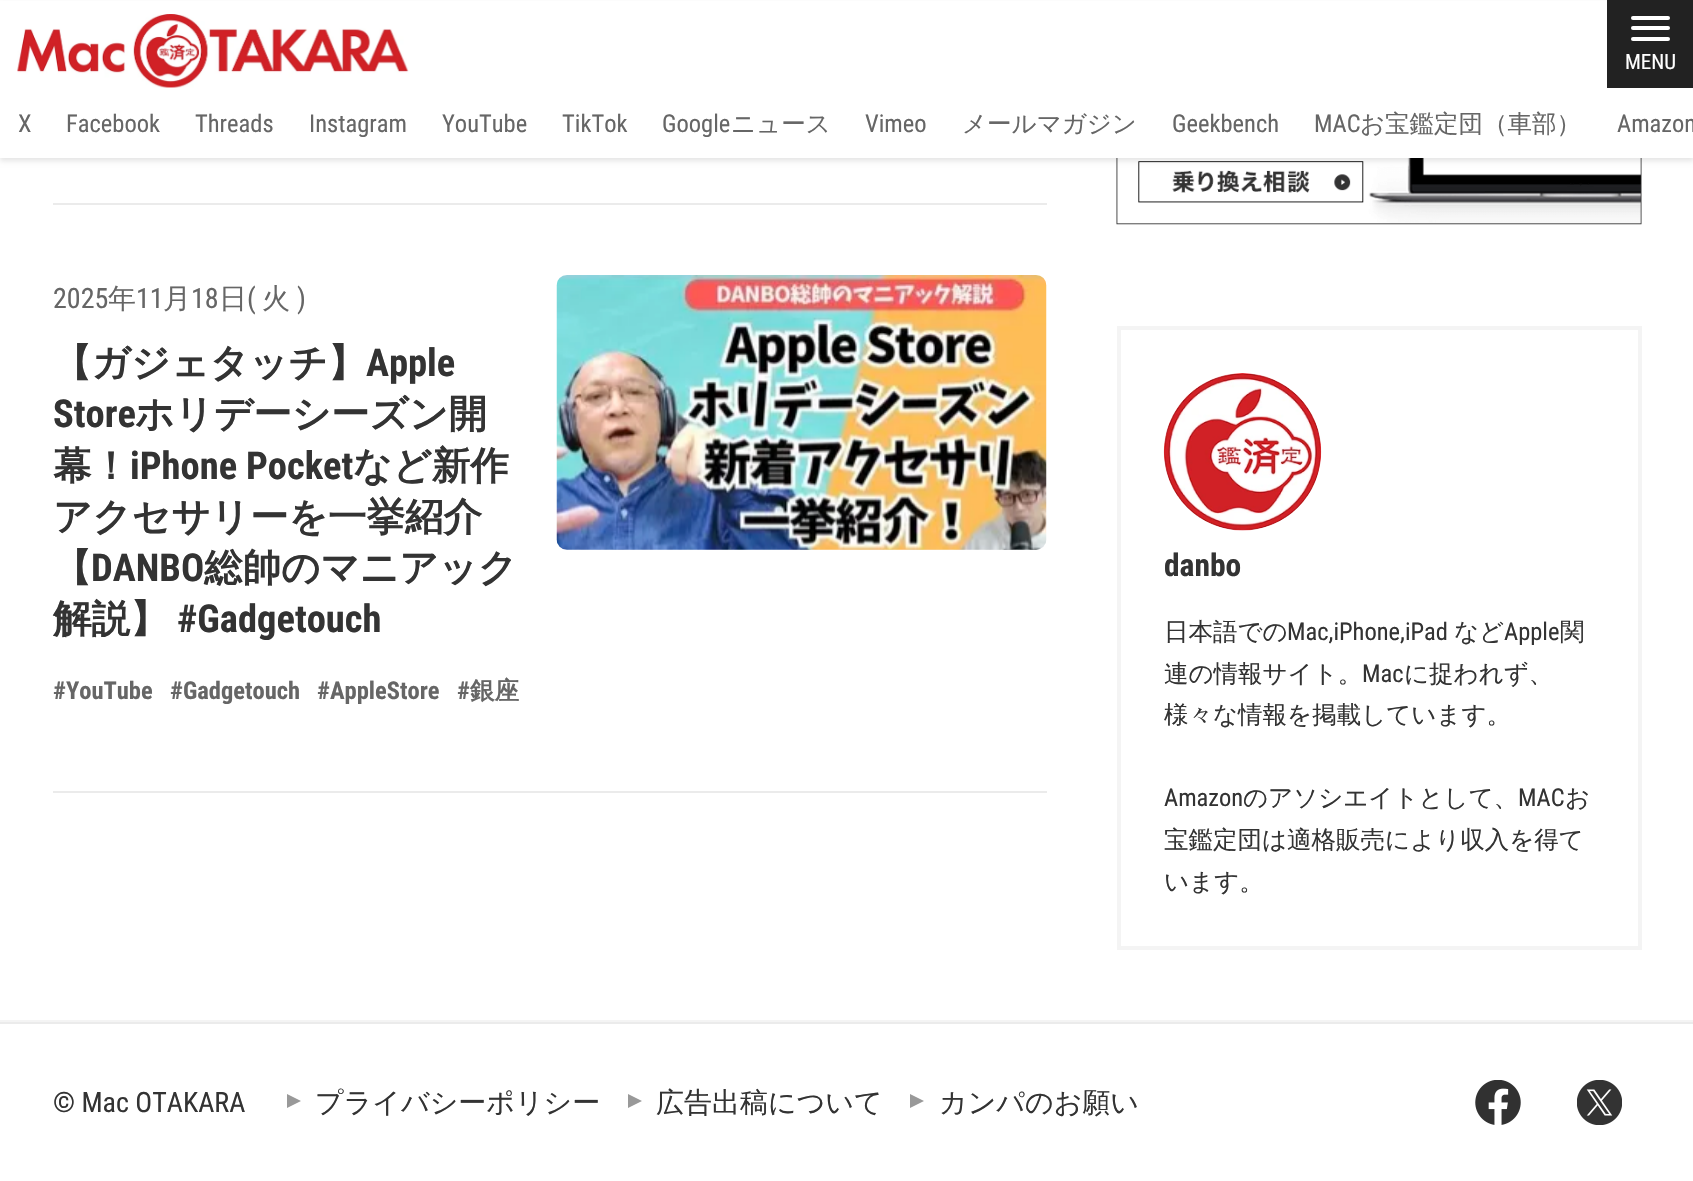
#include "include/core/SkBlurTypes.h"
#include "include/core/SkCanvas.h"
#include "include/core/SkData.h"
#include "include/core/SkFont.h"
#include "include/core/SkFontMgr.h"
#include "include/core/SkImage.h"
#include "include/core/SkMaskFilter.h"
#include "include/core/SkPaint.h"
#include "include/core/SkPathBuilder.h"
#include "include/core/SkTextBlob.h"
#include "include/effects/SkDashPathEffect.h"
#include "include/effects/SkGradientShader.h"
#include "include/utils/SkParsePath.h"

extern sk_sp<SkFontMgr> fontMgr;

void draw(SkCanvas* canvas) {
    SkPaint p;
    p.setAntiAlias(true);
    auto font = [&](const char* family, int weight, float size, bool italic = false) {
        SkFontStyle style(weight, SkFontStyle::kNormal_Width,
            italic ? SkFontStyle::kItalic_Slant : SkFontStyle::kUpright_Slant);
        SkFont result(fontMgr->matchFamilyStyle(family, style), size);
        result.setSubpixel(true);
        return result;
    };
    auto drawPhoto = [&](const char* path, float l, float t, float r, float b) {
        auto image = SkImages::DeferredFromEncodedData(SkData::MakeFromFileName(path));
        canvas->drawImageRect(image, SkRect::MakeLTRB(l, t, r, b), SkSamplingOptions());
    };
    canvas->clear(0xFFFFFFFF);
    drawPhoto("media/3.png", 1116, 158, 1642, 225);
    p.setColor(0x1A000000);
    p.setMaskFilter(SkMaskFilter::MakeBlur(kNormal_SkBlurStyle, 2.5f));
    canvas->drawRect(SkRect::MakeLTRB(0, 4, 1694, 161), p);
    p.setMaskFilter(nullptr);
    p.setColor(0xFFFFFFFF);
    canvas->drawRect(SkRect::MakeLTRB(0, 1, 1693, 158), p);
    drawPhoto("media/1.png", 17, 14, 409, 88);
    p.setColor(0xFF222222);
    canvas->drawRect(SkRect::MakeLTRB(1607, 0, 1693, 88), p);
    p.setColor(0xFFFFFFFF);
    canvas->drawRoundRect(SkRect::MakeLTRB(1631, 26, 1670, 30), 2, 2, p);
    canvas->drawRoundRect(SkRect::MakeLTRB(1631, 16, 1670, 20), 2, 2, p);
    canvas->drawRoundRect(SkRect::MakeLTRB(1631, 37, 1670, 41), 2, 2, p);
    auto font1 = font("Roboto Condensed", 400, 21);
    canvas->drawString("MENU", 1625, 69, font1, p);
    auto font2 = font("Roboto Condensed", 400, 24.5f);
    p.setColor(0xFF666666);
    {
        const struct { const char* s; float x, y; } items[] = {
            {"X", 18, 132},
            {"Facebook", 66, 132},
            {"Threads", 195, 132},
            {"Instagram", 309, 132},
            {"YouTube", 442, 132},
            {"TikTok", 562, 132},
            {"Google", 662, 132},
        };
        for (auto [s, x, y] : items) {
            canvas->drawString(s, x, y, font2, p);
        }
    }
    auto font3 = font("WenQuanYi Zen Hei", 500, 24.5f);
    canvas->drawString("ニュース", 731, 132, font3, p);
    canvas->drawString("Vimeo", 865, 132, font2, p);
    canvas->drawString("メールマガジン", 962, 132, font3, p);
    canvas->drawString("Geekbench", 1172, 132, font2, p);
    canvas->drawString("MAC", 1314, 132, font2, p);
    canvas->drawString("お宝鑑定団（車部）", 1360, 132, font3, p);
    canvas->drawString("Amazon", 1617, 132, font2, p);
    p.setColor(0xFFEBEBEB);
    canvas->drawRect(SkRect::MakeLTRB(53, 203, 1047, 205), p);
    canvas->drawRect(SkRect::MakeLTRB(53, 791, 1047, 793), p);
    auto font4 = font("Roboto Condensed", 400, 28);
    p.setColor(0xFF666666);
    canvas->drawString("2025", 53, 308, font4, p);
    auto font5 = font("WenQuanYi Zen Hei", 500, 28);
    canvas->drawString("年", 108, 308, font5, p);
    canvas->drawString("11", 136, 308, font4, p);
    canvas->drawString("月", 163, 308, font5, p);
    canvas->drawString("18", 191, 308, font4, p);
    canvas->drawString("日", 219, 308, font5, p);
    canvas->drawString("(", 247, 308, font4, p);
    canvas->drawString("火", 262, 308, font5, p);
    canvas->drawString(")", 297, 308, font4, p);
    auto font6 = font("WenQuanYi Zen Hei", 700, 38.5f);
    p.setColor(0xFF333333);
    canvas->drawString("【ガジェタッチ】", 53, 376, font6, p);
    auto font7 = font("Roboto Condensed", 700, 38.5f);
    canvas->drawString("Apple", 366, 376, font7, p);
    canvas->drawString("Store", 53, 427, font7, p);
    canvas->drawString("ホリデーシーズン開", 135, 427, font6, p);
    canvas->drawString("幕！", 53, 479, font6, p);
    canvas->drawString("iPhone Pocket", 130, 479, font7, p);
    {
        const struct { const char* s; float x, y; } items[] = {
            {"など新作", 353, 479},
            {"アクセサリーを一挙紹介", 53, 530},
            {"【", 53, 581},
        };
        for (auto [s, x, y] : items) {
            canvas->drawString(s, x, y, font6, p);
        }
    }
    canvas->drawString("DANBO", 91, 581, font7, p);
    canvas->drawString("総帥のマニアック", 204, 581, font6, p);
    canvas->drawString("解説】", 53, 632, font6, p);
    canvas->drawString("#Gadgetouch", 177, 632, font7, p);
    drawPhoto("media/2.png", 556, 275, 1047, 550);
    auto font8 = font("Roboto Condensed", 700, 24.5f);
    p.setColor(0xFF666666);
    {
        const struct { const char* s; float x, y; } items[] = {
            {"#YouTube", 53, 699},
            {"#Gadgetouch", 170, 699},
            {"#AppleStore", 317, 699},
            {"#", 457, 699},
        };
        for (auto [s, x, y] : items) {
            canvas->drawString(s, x, y, font8, p);
        }
    }
    auto font9 = font("WenQuanYi Zen Hei", 700, 24.5f);
    canvas->drawString("銀座", 470, 699, font9, p);
    p.setStyle(SkPaint::kStroke_Style);
    p.setStrokeWidth(4);
    p.setColor(0xFFF4F4F4);
    canvas->drawRect(SkRect::MakeLTRB(1119, 328, 1640, 948), p);
    drawPhoto("media/4.png", 1163, 373, 1322, 531);
    auto font10 = font("Roboto Condensed", 700, 31.5f);
    p.setStyle(SkPaint::kFill_Style);
    p.setColor(0xFF333333);
    canvas->drawString("danbo", 1164, 576, font10, p);
    canvas->drawString("日本語での", 1164, 640, font3, p);
    canvas->drawString("Mac,iPhone,iPad", 1287, 640, font2, p);
    canvas->drawString("など", 1454, 640, font3, p);
    canvas->drawString("Apple", 1504, 640, font2, p);
    canvas->drawString("関", 1560, 640, font3, p);
    canvas->drawString("連の情報サイト。", 1164, 682, font3, p);
    canvas->drawString("Mac", 1362, 682, font2, p);
    canvas->drawString("に捉われず、", 1404, 682, font3, p);
    canvas->drawString("様々な情報を掲載しています。", 1164, 723, font3, p);
    canvas->drawString("Amazon", 1164, 806, font2, p);
    canvas->drawString("のアソシエイトとして、", 1243, 806, font3, p);
    canvas->drawString("MAC", 1518, 806, font2, p);
    {
        const struct { const char* s; float x, y; } items[] = {
            {"お", 1565, 806},
            {"宝鑑定団は適格販売により収入を得て", 1164, 848},
            {"います。", 1164, 890},
        };
        for (auto [s, x, y] : items) {
            canvas->drawString(s, x, y, font3, p);
        }
    }
    p.setColor(0xFFF4F4F4);
    canvas->drawRect(SkRect::MakeLTRB(0, 1020, 1693, 1022), p);
    p.setColor(0xFFEBEBEB);
    canvas->drawRect(SkRect::MakeLTRB(0, 1022, 1693, 1024), p);
    p.setColor(0xFF333333);
    canvas->drawString("© Mac OTAKARA", 53, 1112, font4, p);
    p.setColor(0xFF999999);
    canvas->drawPath(SkPathBuilder().moveTo(287, 1108).lineTo(287, 1094).lineTo(301, 1101).close().detach(), p);
    p.setColor(0xFF333333);
    canvas->drawString("プライバシーポリシー", 315, 1112, font5, p);
    p.setColor(0xFF999999);
    canvas->drawPath(SkPathBuilder().moveTo(628, 1108).lineTo(628, 1094).lineTo(642, 1101).close().detach(), p);
    p.setColor(0xFF333333);
    canvas->drawString("広告出稿について", 656, 1112, font5, p);
    p.setColor(0xFF999999);
    canvas->drawPath(SkPathBuilder().moveTo(910, 1108).lineTo(910, 1094).lineTo(924, 1101).close().detach(), p);
    p.setColor(0xFF333333);
    canvas->drawString("カンパのお願い", 939, 1112, font5, p);
    drawPhoto("media/5.png", 1475, 1080, 1521, 1125);
    drawPhoto("media/6.png", 1577, 1080, 1622, 1125);
}
